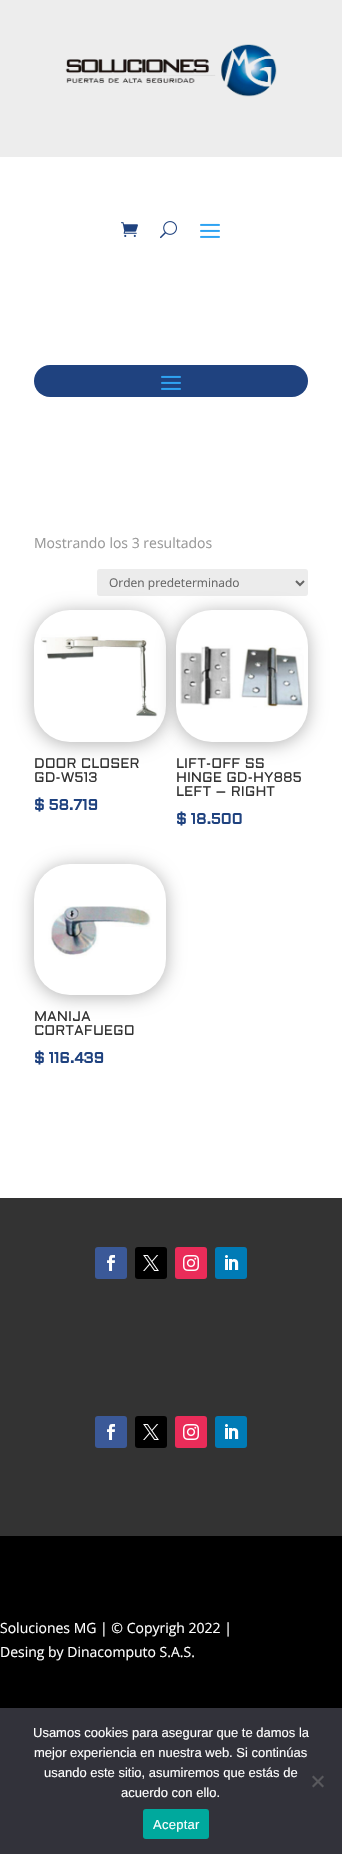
#include "include/core/SkBlurTypes.h"
#include "include/core/SkCanvas.h"
#include "include/core/SkData.h"
#include "include/core/SkFont.h"
#include "include/core/SkFontMgr.h"
#include "include/core/SkImage.h"
#include "include/core/SkMaskFilter.h"
#include "include/core/SkPaint.h"
#include "include/core/SkPathBuilder.h"
#include "include/core/SkTextBlob.h"
#include "include/effects/SkDashPathEffect.h"
#include "include/effects/SkGradientShader.h"
#include "include/utils/SkParsePath.h"

extern sk_sp<SkFontMgr> fontMgr;

void draw(SkCanvas* canvas) {
    SkPaint p;
    p.setAntiAlias(true);
    auto font = [&](const char* family, int weight, float size, bool italic = false) {
        SkFontStyle style(weight, SkFontStyle::kNormal_Width,
            italic ? SkFontStyle::kItalic_Slant : SkFontStyle::kUpright_Slant);
        SkFont result(fontMgr->matchFamilyStyle(family, style), size);
        result.setSubpixel(true);
        return result;
    };
    auto drawTracked = [&](const char* s, float x, float y, const SkFont& font, const SkPaint& ink, float letter, float word) {
        std::vector<SkGlyphID> glyphs(font.countText(s, strlen(s), SkTextEncoding::kUTF8));
        std::vector<float> xs(glyphs.size());
        font.textToGlyphs(s, strlen(s), SkTextEncoding::kUTF8, glyphs);
        font.getXPos(glyphs, xs, x);
        float extra = 0;
        for (size_t i = 0; i < glyphs.size(); i++) {
            xs[i] += extra;
            extra += letter + word * (glyphs[i] == font.unicharToGlyph(' '));
        }
        canvas->drawTextBlob(SkTextBlob::MakeFromPosHGlyphs(glyphs, xs, y, font), 0, 0, ink);
    };
    auto drawPhoto = [&](const char* path, float l, float t, float r, float b) {
        auto image = SkImages::DeferredFromEncodedData(SkData::MakeFromFileName(path));
        canvas->drawImageRect(image, SkRect::MakeLTRB(l, t, r, b), SkSamplingOptions());
    };
    canvas->clear(0xFFFFFFFF);
    p.setColor(0xFFEDEDED);
    canvas->drawRect(SkRect::MakeLTRB(0, 0, 342, 157), p);
    drawPhoto("media/1.png", 65, 44, 277, 97);
    drawPhoto("media/2.png", 121, 222, 138, 237);
    drawPhoto("media/3.png", 160, 221, 177, 239);
    drawPhoto("media/4.png", 200, 223, 220, 238);
    p.setColor(0xFF1F427F);
    canvas->drawRoundRect(SkRect::MakeLTRB(34, 365, 308, 397), 16, 16, p);
    drawPhoto("media/5.png", 161, 375, 181, 390);
    auto font1 = font("Open Sans", 400, 14);
    p.setColor(0xFF999999);
    canvas->drawString("Mostrando los 3 resultados", 34, 548, font1, p);
    p.setColor(0xFFECECEC);
    canvas->drawRoundRect(SkRect::MakeLTRB(97, 569, 308, 596), 3, 3, p);
    p.setStyle(SkPaint::kStroke_Style);
    p.setStrokeWidth(2);
    p.setColor(0xFF666666);
    canvas->drawPath(SkPathBuilder().moveTo(296, 581).lineTo(300, 585).lineTo(304, 581).detach(), p);
    auto font2 = font("Open Sans", 400, 12);
    p.setStyle(SkPaint::kFill_Style);
    canvas->drawString("Orden predeterminado", 109, 587, font2, p);
    p.setColor(0x4D000000);
    p.setMaskFilter(SkMaskFilter::MakeBlur(kNormal_SkBlurStyle, 9));
    canvas->drawRoundRect(SkRect::MakeLTRB(34, 612, 166, 744), 36, 36, p);
    p.setMaskFilter(nullptr);
    drawPhoto("media/6.png", 34, 610, 166, 742);
    auto font3 = font("Aldrich", 400, 14);
    p.setColor(0xFF333333);
    canvas->drawString("DOOR CLOSER", 34, 768, font3, p);
    canvas->drawString("GD-W513", 34, 782, font3, p);
    auto font4 = font("Aldrich", 700, 15);
    p.setColor(0xFF1F427F);
    canvas->drawString("$ 58.719", 34, 810, font4, p);
    p.setColor(0x4D000000);
    p.setMaskFilter(SkMaskFilter::MakeBlur(kNormal_SkBlurStyle, 9));
    canvas->drawRoundRect(SkRect::MakeLTRB(176, 612, 308, 744), 36, 36, p);
    p.setMaskFilter(nullptr);
    drawPhoto("media/7.png", 176, 610, 308, 742);
    p.setColor(0xFF333333);
    {
        const struct { const char* s; float x, y; } items[] = {
            {"LIFT-OFF SS", 176, 768},
            {"HINGE GD-HY885", 176, 782},
            {"LEFT – RIGHT", 176, 796},
        };
        for (auto [s, x, y] : items) {
            canvas->drawString(s, x, y, font3, p);
        }
    }
    p.setColor(0xFF1F427F);
    canvas->drawString("$ 18.500", 176, 824, font4, p);
    p.setColor(0x4D000000);
    p.setMaskFilter(SkMaskFilter::MakeBlur(kNormal_SkBlurStyle, 9));
    canvas->drawRoundRect(SkRect::MakeLTRB(34, 866, 166, 997), 36, 36, p);
    p.setMaskFilter(nullptr);
    drawPhoto("media/8.png", 34, 864, 166, 995);
    p.setColor(0xFF333333);
    canvas->drawString("MANIJA", 34, 1021, font3, p);
    canvas->drawString("CORTAFUEGO", 34, 1035, font3, p);
    p.setColor(0xFF1F427F);
    canvas->drawString("$ 116.439", 34, 1063, font4, p);
    p.setColor(0xFF333333);
    canvas->drawRect(SkRect::MakeLTRB(0, 1198, 342, 1536), p);
    p.setColor(0xFF3B5998);
    canvas->drawRoundRect(SkRect::MakeLTRB(95, 1247, 127, 1279), 3, 3, p);
    drawPhoto("media/9.png", 107, 1255, 115, 1271);
    p.setColor(0xFF000000);
    canvas->drawRoundRect(SkRect::MakeLTRB(135, 1247, 167, 1279), 3, 3, p);
    drawPhoto("media/10.png", 143, 1255, 159, 1271);
    p.setColor(0xFFEA2C59);
    canvas->drawRoundRect(SkRect::MakeLTRB(175, 1247, 207, 1279), 3, 3, p);
    drawPhoto("media/11.png", 183, 1255, 199, 1271);
    p.setColor(0xFF007BB6);
    canvas->drawRoundRect(SkRect::MakeLTRB(215, 1247, 247, 1279), 3, 3, p);
    drawPhoto("media/12.png", 225, 1255, 239, 1270);
    p.setColor(0xFF3B5998);
    canvas->drawRoundRect(SkRect::MakeLTRB(95, 1416, 127, 1448), 3, 3, p);
    drawPhoto("media/9.png", 107, 1424, 115, 1440);
    p.setColor(0xFF000000);
    canvas->drawRoundRect(SkRect::MakeLTRB(135, 1416, 167, 1448), 3, 3, p);
    drawPhoto("media/10.png", 143, 1424, 159, 1440);
    p.setColor(0xFFEA2C59);
    canvas->drawRoundRect(SkRect::MakeLTRB(175, 1416, 207, 1448), 3, 3, p);
    drawPhoto("media/11.png", 183, 1424, 199, 1440);
    p.setColor(0xFF007BB6);
    canvas->drawRoundRect(SkRect::MakeLTRB(215, 1416, 247, 1448), 3, 3, p);
    drawPhoto("media/12.png", 225, 1424, 239, 1439);
    p.setColor(0xFF000000);
    canvas->drawRect(SkRect::MakeLTRB(0, 1536, 342, 1708), p);
    p.setColor(0xFFFFFFFF);
    canvas->drawString("Soluciones MG | © Copyrigh 2022 |", 0, 1633, font1, p);
    canvas->drawString("Desing by Dinacomputo S.A.S.", 0, 1657, font1, p);
    p.setColor(0xFF32323A);
    canvas->drawRect(SkRect::MakeLTRB(0, 1708, 342, 1854), p);
    auto font5 = font("Liberation Sans", 400, 13);
    p.setColor(0xFFFFFFFF);
    {
        const struct { const char* s; float x, y; } items[] = {
            {"Usamos cookies para asegurar que te damos la", 33, 1737},
            {"mejor experiencia en nuestra web. Si continúas", 34, 1757},
            {"usando este sitio, asumiremos que estás de", 44, 1777},
            {"acuerdo con ello.", 121, 1797},
        };
        for (auto [s, x, y] : items) {
            canvas->drawString(s, x, y, font5, p);
        }
    }
    p.setColor(0xFF59595D);
    canvas->drawPath(SkPathBuilder().moveTo(322.5f, 1775.5f).lineTo(324, 1777).lineTo(313.5f, 1787.5f).lineTo(312, 1786).close().detach(), p);
    canvas->drawPath(SkPathBuilder().moveTo(312, 1777).lineTo(313.5f, 1775.5f).lineTo(324, 1786).lineTo(322.5f, 1787.5f).close().detach(), p);
    p.setColor(0xFF00A99D);
    canvas->drawRoundRect(SkRect::MakeLTRB(143, 1809, 209, 1839), 3, 3, p);
    p.setColor(0xFFFFFFFF);
    drawTracked("Aceptar", 153, 1829, font5, p, 0.25f, 0);
}
